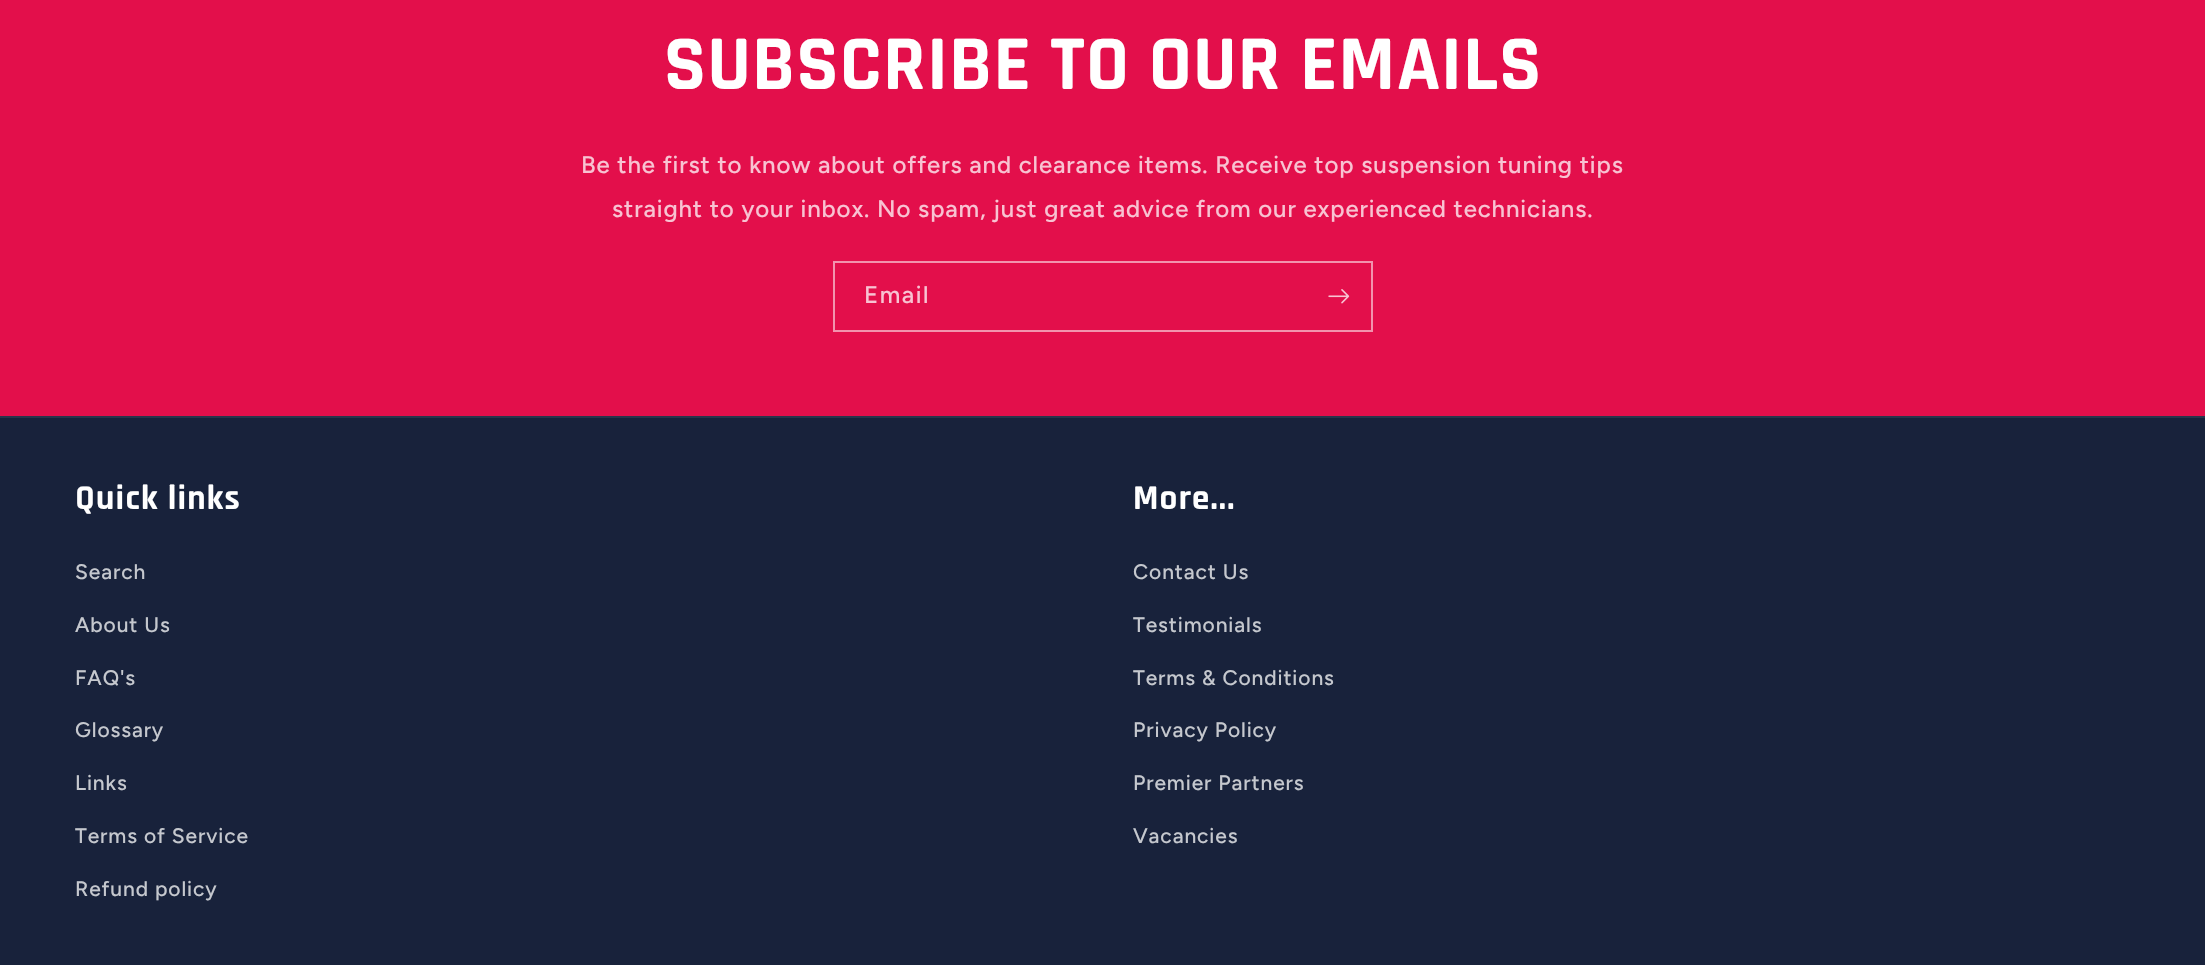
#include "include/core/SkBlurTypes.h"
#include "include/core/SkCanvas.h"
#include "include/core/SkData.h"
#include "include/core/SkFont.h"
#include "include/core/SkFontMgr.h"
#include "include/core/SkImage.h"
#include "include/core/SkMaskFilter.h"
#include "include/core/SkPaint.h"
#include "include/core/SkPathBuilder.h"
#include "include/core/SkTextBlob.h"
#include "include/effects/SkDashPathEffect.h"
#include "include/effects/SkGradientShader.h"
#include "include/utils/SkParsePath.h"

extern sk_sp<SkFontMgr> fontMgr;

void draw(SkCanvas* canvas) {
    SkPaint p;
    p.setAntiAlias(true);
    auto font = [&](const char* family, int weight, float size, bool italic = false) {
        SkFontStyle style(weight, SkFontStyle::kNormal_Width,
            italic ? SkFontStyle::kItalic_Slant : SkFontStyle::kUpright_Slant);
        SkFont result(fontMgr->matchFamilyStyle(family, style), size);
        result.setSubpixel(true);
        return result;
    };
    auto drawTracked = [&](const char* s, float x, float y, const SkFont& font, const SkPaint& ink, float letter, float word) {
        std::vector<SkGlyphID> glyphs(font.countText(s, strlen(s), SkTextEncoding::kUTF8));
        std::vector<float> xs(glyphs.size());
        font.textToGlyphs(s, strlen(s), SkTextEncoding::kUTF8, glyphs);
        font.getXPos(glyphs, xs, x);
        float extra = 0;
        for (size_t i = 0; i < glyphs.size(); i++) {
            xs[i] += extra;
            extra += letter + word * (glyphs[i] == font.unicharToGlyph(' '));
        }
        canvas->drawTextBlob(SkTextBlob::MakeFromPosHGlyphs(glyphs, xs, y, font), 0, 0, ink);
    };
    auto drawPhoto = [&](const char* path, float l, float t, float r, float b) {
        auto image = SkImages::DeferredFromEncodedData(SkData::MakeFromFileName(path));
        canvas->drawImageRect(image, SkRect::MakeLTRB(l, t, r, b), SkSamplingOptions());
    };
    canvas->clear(0xFF18223B);
    p.setColor(0xFFE30F4B);
    canvas->drawRect(SkRect::MakeLTRB(0, 0, 2205, 416), p);
    auto font1 = font("Rajdhani", 700, 78);
    p.setColor(0xFFFFFFFF);
    drawTracked("SUBSCRIBE TO OUR EMAILS", 664, 89, font1, p, 1.2f, 0);
    auto font2 = font("Figtree", 500, 24);
    p.setColor(0xFFF8C3D2);
    drawTracked("Be the first to know about offers and clearance items. Receive top suspension tuning tips", 581, 173, font2, p, 0.9f, 0);
    drawTracked("straight to your inbox. No spam, just great advice from our experienced technicians.", 612, 217, font2, p, 0.9f, 0);
    p.setStyle(SkPaint::kStroke_Style);
    p.setStrokeWidth(2);
    p.setColor(0xFFF293AE);
    canvas->drawRect(SkRect::MakeLTRB(834, 262, 1372, 331), p);
    p.setStyle(SkPaint::kFill_Style);
    p.setColor(0xFFF8C3D2);
    drawTracked("Email", 864, 303, font2, p, 1.5f, 0);
    drawPhoto("media/1.png", 1328, 289, 1350, 304);
    p.setColor(0xFF2A344B);
    canvas->drawRect(SkRect::MakeLTRB(0, 416, 2205, 418), p);
    auto font3 = font("Rajdhani", 700, 35);
    p.setColor(0xFFFFFFFF);
    drawTracked("Quick links", 75, 509, font3, p, 1.2f, 0);
    auto font4 = font("Figtree", 500, 21);
    p.setColor(0xFFC5C8CE);
    {
        const struct { const char* s; float x, y; } items[] = {
            {"Search", 75, 579},
            {"About Us", 75, 632},
            {"FAQ's", 75, 685},
            {"Glossary", 75, 737},
            {"Links", 75, 790},
            {"Terms of Service", 75, 843},
            {"Refund policy", 75, 896},
        };
        for (auto [s, x, y] : items) {
            drawTracked(s, x, y, font4, p, 0.9f, 0);
        }
    }
    p.setColor(0xFFFFFFFF);
    drawTracked("More...", 1133, 509, font3, p, 1.2f, 0);
    p.setColor(0xFFC5C8CE);
    {
        const struct { const char* s; float x, y; } items[] = {
            {"Contact Us", 1133, 579},
            {"Testimonials", 1133, 632},
            {"Terms & Conditions", 1133, 685},
            {"Privacy Policy", 1133, 737},
            {"Premier Partners", 1133, 790},
            {"Vacancies", 1133, 843},
        };
        for (auto [s, x, y] : items) {
            drawTracked(s, x, y, font4, p, 0.9f, 0);
        }
    }
}
